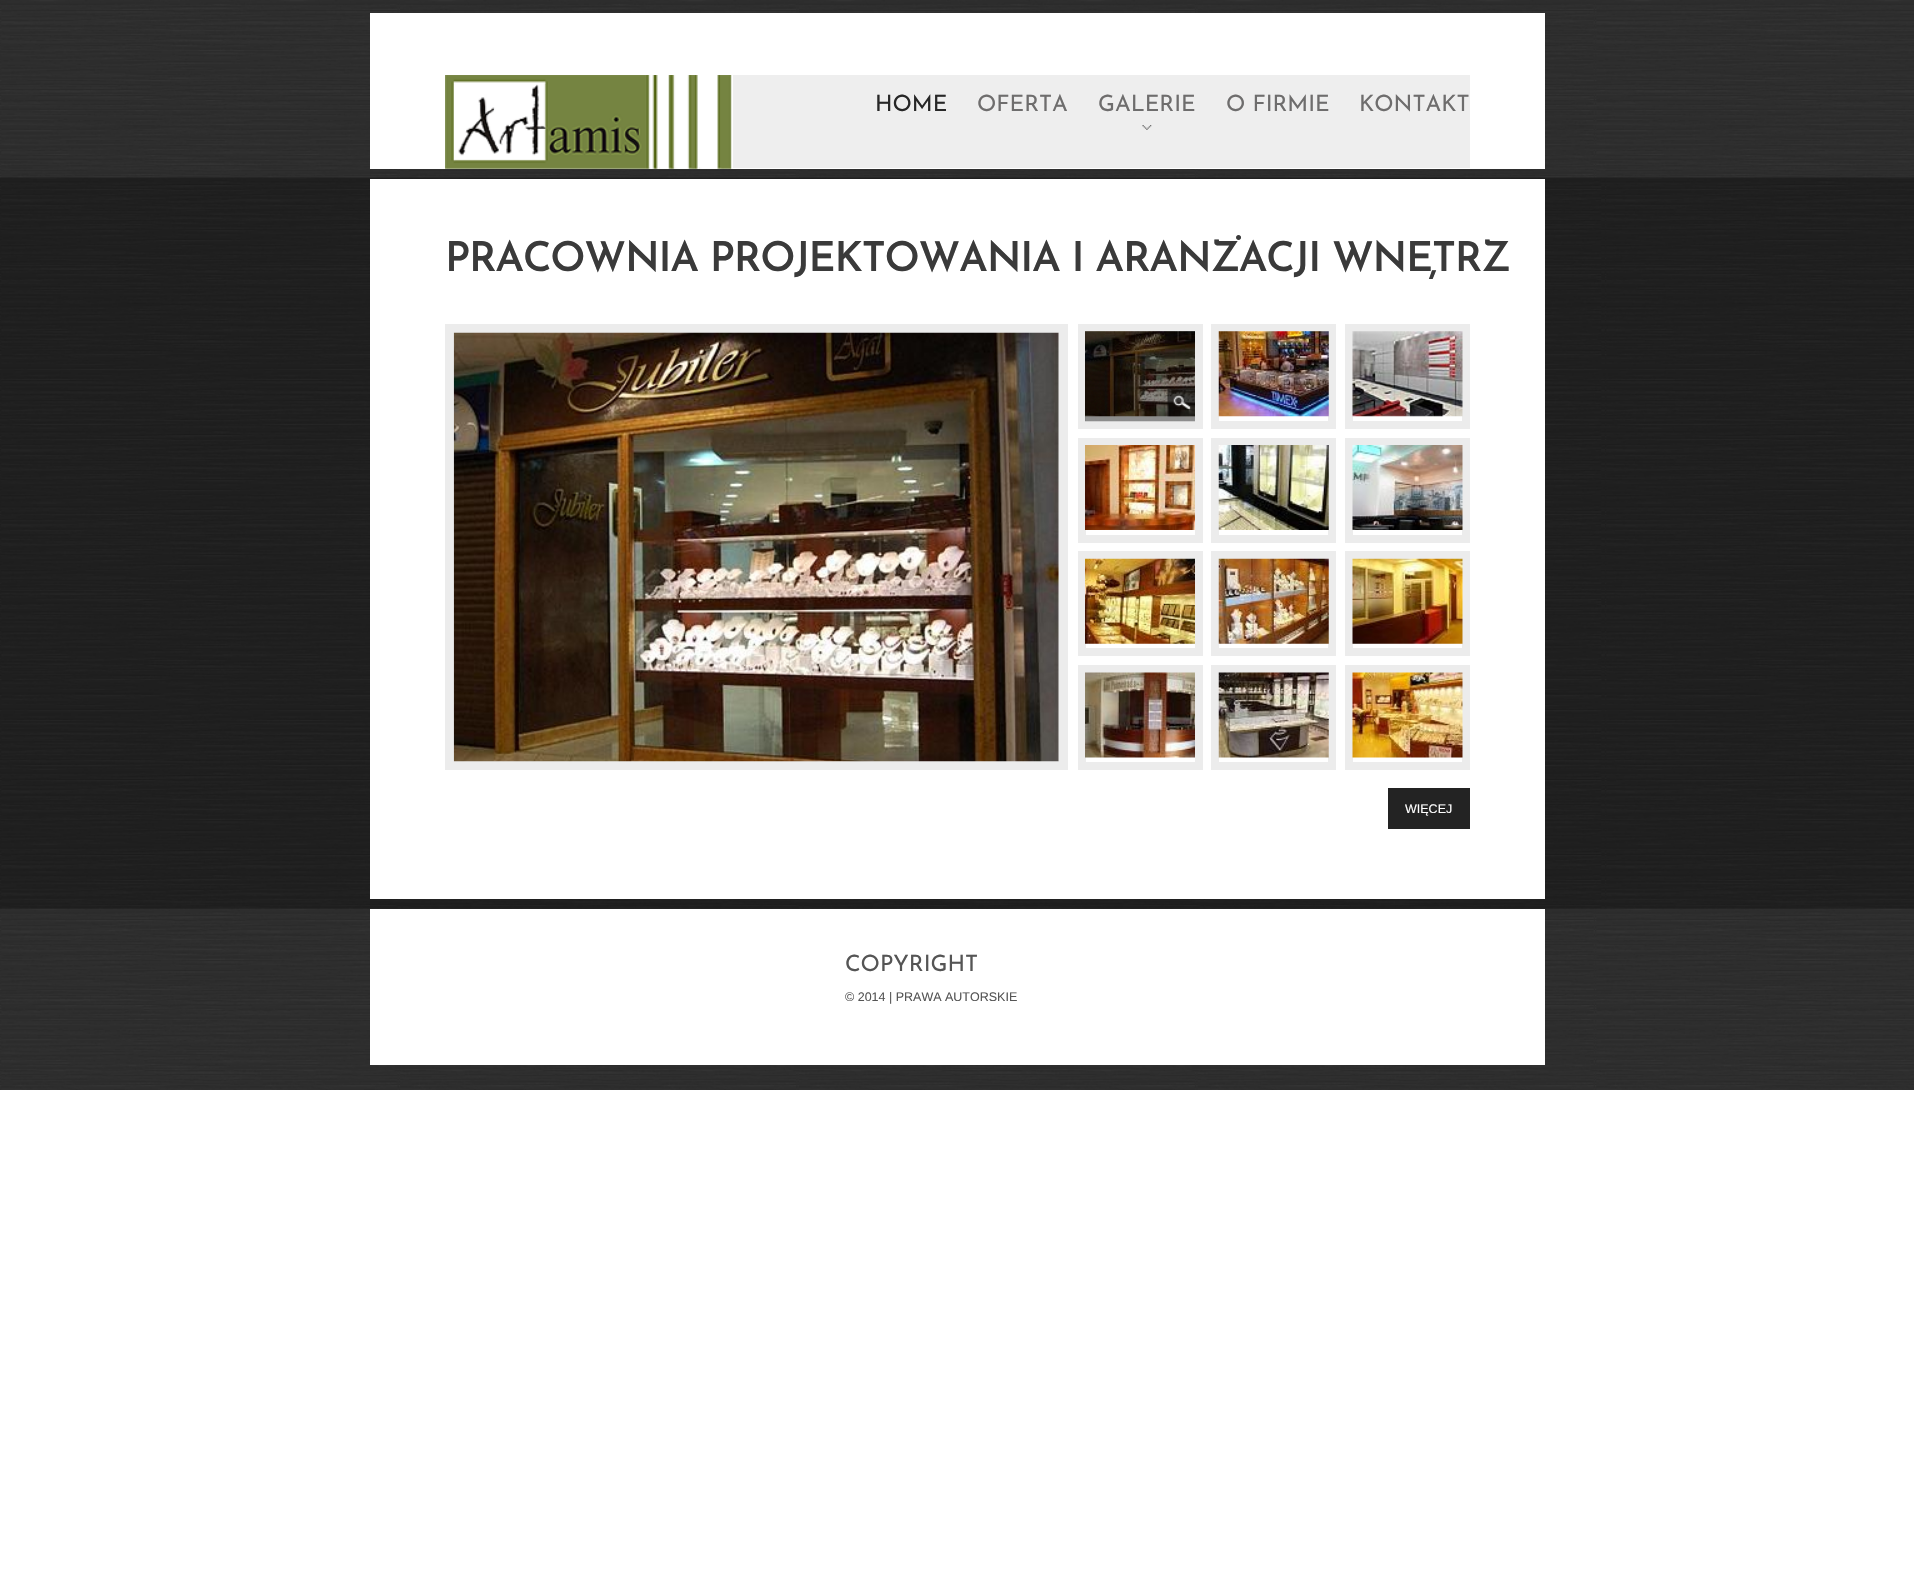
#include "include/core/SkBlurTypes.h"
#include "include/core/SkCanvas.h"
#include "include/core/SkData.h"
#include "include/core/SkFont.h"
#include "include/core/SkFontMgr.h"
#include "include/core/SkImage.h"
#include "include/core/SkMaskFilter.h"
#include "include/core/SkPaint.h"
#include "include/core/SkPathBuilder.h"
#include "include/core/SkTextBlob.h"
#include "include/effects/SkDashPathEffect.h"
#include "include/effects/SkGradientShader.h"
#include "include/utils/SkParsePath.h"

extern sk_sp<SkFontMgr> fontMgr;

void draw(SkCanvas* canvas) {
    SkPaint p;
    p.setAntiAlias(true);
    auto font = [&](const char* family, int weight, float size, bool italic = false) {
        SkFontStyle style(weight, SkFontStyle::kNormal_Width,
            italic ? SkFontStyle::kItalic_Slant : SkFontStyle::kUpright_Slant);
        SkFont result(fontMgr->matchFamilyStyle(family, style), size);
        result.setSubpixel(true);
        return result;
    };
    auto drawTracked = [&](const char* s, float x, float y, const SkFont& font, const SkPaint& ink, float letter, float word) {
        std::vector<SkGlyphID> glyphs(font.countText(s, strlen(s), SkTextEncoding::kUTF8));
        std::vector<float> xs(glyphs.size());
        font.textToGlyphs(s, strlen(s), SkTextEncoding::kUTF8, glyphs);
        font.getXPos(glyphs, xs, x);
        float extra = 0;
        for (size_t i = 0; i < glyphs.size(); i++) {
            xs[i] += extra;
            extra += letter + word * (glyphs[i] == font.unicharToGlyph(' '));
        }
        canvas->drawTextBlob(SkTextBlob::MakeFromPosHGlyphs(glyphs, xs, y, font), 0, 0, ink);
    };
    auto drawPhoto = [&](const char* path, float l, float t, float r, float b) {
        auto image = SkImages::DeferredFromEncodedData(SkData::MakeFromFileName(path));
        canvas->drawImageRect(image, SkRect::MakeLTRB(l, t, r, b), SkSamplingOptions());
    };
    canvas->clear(0xFFFFFFFF);
    drawPhoto("media/1.png", 0, 177, 1914, 909);
    drawPhoto("media/2.png", 0, 0, 1914, 178);
    p.setColor(0xFFFFFFFF);
    canvas->drawRect(SkRect::MakeLTRB(370, 13, 1545, 169), p);
    drawPhoto("media/3.png", 445, 75, 732, 169);
    p.setColor(0xFFEEEEEE);
    canvas->drawRect(SkRect::MakeLTRB(733, 75, 1470, 168), p);
    auto font1 = font("Josefin Sans", 400, 22.5f);
    p.setColor(0xFF272727);
    canvas->drawString("HOME", 875, 111, font1, p);
    p.setColor(0xFF6E6D6D);
    canvas->drawString("OFERTA", 977, 111, font1, p);
    canvas->drawString("GALERIE", 1098, 111, font1, p);
    drawPhoto("media/4.png", 1142, 125, 1152, 130);
    canvas->drawString("O FIRMIE", 1226, 111, font1, p);
    canvas->drawString("KONTAKT", 1359, 111, font1, p);
    p.setColor(0xFFFFFFFF);
    canvas->drawRect(SkRect::MakeLTRB(370, 179, 1545, 899), p);
    auto font2 = font("Josefin Sans", 600, 41.25f);
    p.setColor(0xFF3A3A3A);
    {
        const struct { const char* s; float x, y; } items[] = {
            {".", 1235, 240},
            {"PRACOWNIA PROJEKTOWANIA I ARANZACJI WNETRZ", 445, 271},
            {",", 1429, 274},
        };
        for (auto [s, x, y] : items) {
            drawTracked(s, x, y, font2, p, -1.25f, 0);
        }
    }
    p.setStyle(SkPaint::kStroke_Style);
    p.setStrokeWidth(9);
    p.setColor(0xFFECECEC);
    canvas->drawRect(SkRect::MakeLTRB(449.5f, 328.5f, 1063.5f, 765.5f), p);
    drawPhoto("media/5.png", 453, 332, 1059, 762);
    p.setStrokeWidth(8);
    canvas->drawRect(SkRect::MakeLTRB(1082, 328, 1199, 425), p);
    drawPhoto("media/6.png", 1085, 331, 1195, 417);
    drawPhoto("media/7.png", 1085, 331, 1195, 422);
    drawPhoto("media/8.png", 1167, 388, 1195, 417);
    canvas->drawRect(SkRect::MakeLTRB(1215, 328, 1332, 425), p);
    drawPhoto("media/9.png", 1218, 331, 1329, 417);
    canvas->drawRect(SkRect::MakeLTRB(1349, 328, 1466, 425), p);
    drawPhoto("media/10.png", 1352, 331, 1463, 417);
    canvas->drawRect(SkRect::MakeLTRB(1082, 442, 1199, 539), p);
    drawPhoto("media/11.png", 1085, 445, 1195, 530);
    canvas->drawRect(SkRect::MakeLTRB(1215, 442, 1332, 539), p);
    drawPhoto("media/12.png", 1218, 445, 1329, 530);
    canvas->drawRect(SkRect::MakeLTRB(1349, 442, 1466, 539), p);
    drawPhoto("media/13.png", 1352, 445, 1463, 530);
    canvas->drawRect(SkRect::MakeLTRB(1082, 555, 1199, 652), p);
    drawPhoto("media/14.png", 1085, 558, 1195, 644);
    canvas->drawRect(SkRect::MakeLTRB(1215, 555, 1332, 652), p);
    drawPhoto("media/15.png", 1218, 558, 1329, 644);
    canvas->drawRect(SkRect::MakeLTRB(1349, 555, 1466, 652), p);
    drawPhoto("media/16.png", 1352, 558, 1463, 644);
    canvas->drawRect(SkRect::MakeLTRB(1082, 669, 1199, 766), p);
    drawPhoto("media/17.png", 1085, 672, 1195, 758);
    canvas->drawRect(SkRect::MakeLTRB(1215, 669, 1332, 766), p);
    drawPhoto("media/18.png", 1218, 672, 1329, 758);
    canvas->drawRect(SkRect::MakeLTRB(1349, 669, 1466, 766), p);
    drawPhoto("media/19.png", 1352, 672, 1463, 758);
    p.setStyle(SkPaint::kFill_Style);
    p.setColor(0xFF232323);
    canvas->drawRect(SkRect::MakeLTRB(1388, 788, 1470, 829), p);
    auto font3 = font("Liberation Sans", 400, 12.5f);
    p.setColor(0xFFFFFFFF);
    canvas->drawString("WIĘCEJ", 1405, 813, font3, p);
    drawPhoto("media/20.png", 0, 908, 1914, 1090);
    canvas->drawRect(SkRect::MakeLTRB(370, 909, 1545, 1065), p);
    p.setColor(0xFF555555);
    canvas->drawString("COPYRIGHT", 845, 971, font1, p);
    canvas->drawString("© 2014 | PRAWA AUTORSKIE", 845, 1001, font3, p);
}
